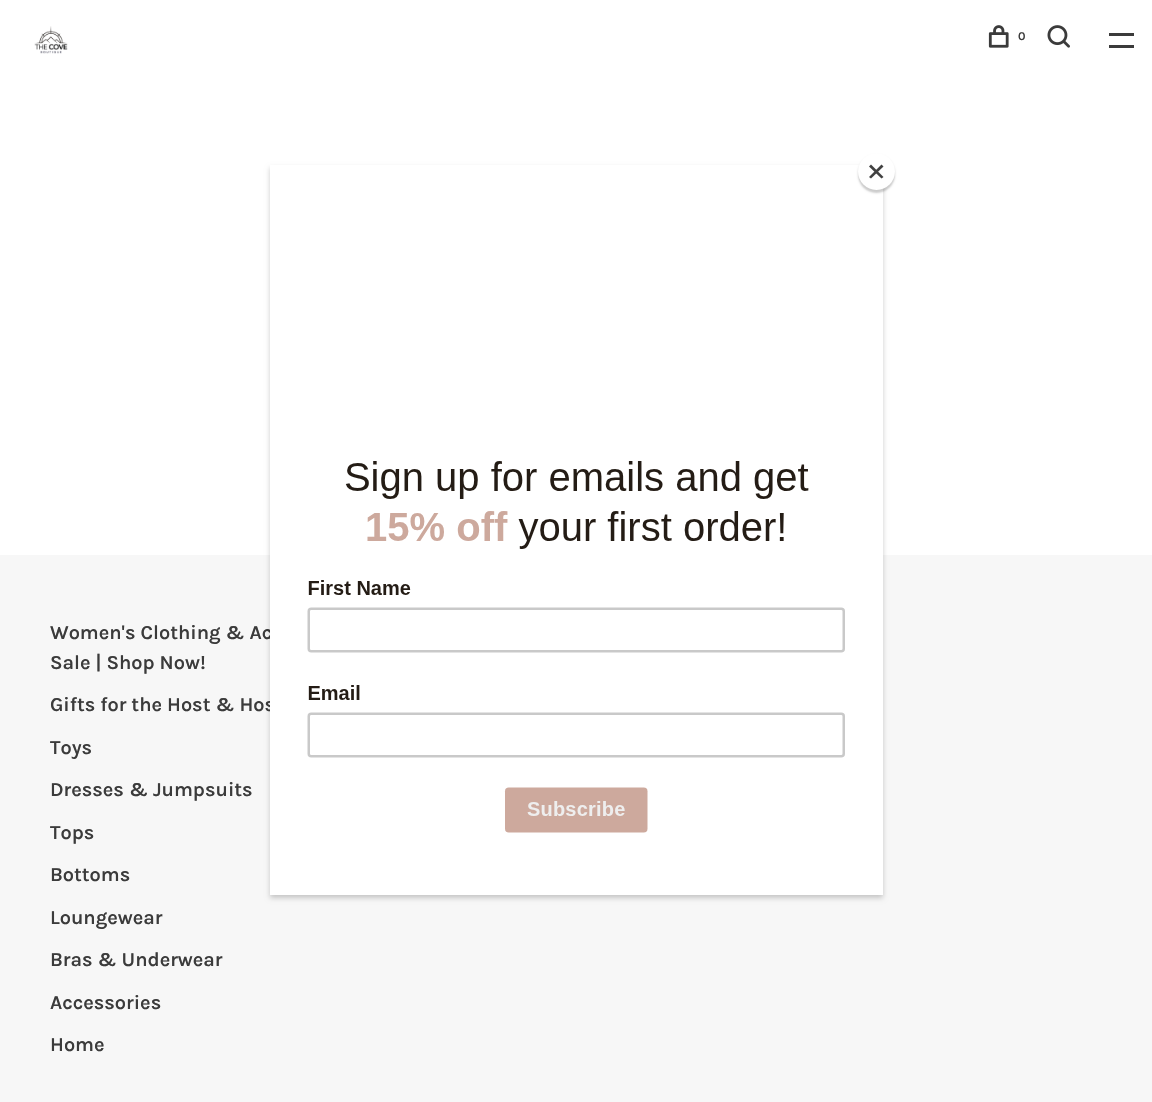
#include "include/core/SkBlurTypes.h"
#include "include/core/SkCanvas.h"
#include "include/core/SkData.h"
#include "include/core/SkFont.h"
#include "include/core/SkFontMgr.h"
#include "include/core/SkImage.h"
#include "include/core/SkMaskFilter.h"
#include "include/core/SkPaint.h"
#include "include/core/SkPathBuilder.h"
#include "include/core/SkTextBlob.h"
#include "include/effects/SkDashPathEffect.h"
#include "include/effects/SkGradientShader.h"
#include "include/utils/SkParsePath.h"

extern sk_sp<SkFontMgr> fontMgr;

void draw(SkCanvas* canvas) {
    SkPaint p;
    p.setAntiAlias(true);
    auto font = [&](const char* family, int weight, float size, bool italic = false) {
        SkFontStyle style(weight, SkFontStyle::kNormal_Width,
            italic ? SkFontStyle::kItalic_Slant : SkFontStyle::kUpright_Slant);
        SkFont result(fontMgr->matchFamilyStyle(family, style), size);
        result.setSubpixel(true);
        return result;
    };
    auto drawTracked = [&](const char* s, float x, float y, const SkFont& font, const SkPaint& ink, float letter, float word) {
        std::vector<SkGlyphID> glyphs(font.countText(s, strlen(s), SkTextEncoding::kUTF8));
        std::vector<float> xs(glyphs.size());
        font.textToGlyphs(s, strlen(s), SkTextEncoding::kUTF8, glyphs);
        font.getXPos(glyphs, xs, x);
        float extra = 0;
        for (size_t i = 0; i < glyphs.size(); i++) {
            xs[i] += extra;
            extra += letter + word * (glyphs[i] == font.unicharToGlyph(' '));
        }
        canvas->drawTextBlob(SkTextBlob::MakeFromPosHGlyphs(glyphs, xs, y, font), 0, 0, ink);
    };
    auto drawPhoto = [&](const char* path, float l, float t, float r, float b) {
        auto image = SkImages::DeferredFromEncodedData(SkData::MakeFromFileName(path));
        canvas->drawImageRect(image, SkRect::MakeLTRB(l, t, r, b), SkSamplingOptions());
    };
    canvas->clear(0xFFFFFFFF);
    drawPhoto("media/1.png", 34, 26, 68, 54);
    drawPhoto("media/2.png", 988, 25, 1009, 48);
    auto font1 = font("Karla", 600, 12);
    p.setColor(0xFF3B3B3B);
    drawTracked("0", 1018, 40, font1, p, 2, 0);
    drawPhoto("media/3.png", 1047, 25, 1070, 48);
    {
        const struct { float l, t, r, b; SkColor color; } items[] = {
            {1109, 33, 1134, 36, 0xFF3B3B3B},
            {1109, 45, 1134, 48, 0xFF3B3B3B},
            {0, 555, 1152, 1102, 0xFFF7F7F7},
        };
        for (auto [l, t, r, b, color] : items) {
            p.setColor(color);
            canvas->drawRect(SkRect::MakeLTRB(l, t, r, b), p);
        }
    }
    auto font2 = font("Karla", 600, 20);
    p.setColor(0xFF3B3B3B);
    {
        const struct { const char* s; float x, y; } items[] = {
            {"Women's Clothing & Ac", 50, 639},
            {"Sale | Shop Now!", 50, 669},
            {"Gifts for the Host & Hos", 50, 711},
            {"Toys", 50, 754},
            {"Dresses & Jumpsuits", 50, 796},
            {"Tops", 50, 839},
            {"Bottoms", 50, 881},
            {"Loungewear", 50, 924},
            {"Bras & Underwear", 50, 966},
            {"Accessories", 50, 1009},
            {"Home", 50, 1051},
        };
        for (auto [s, x, y] : items) {
            canvas->drawString(s, x, y, font2, p);
        }
    }
    p.setColor(0x33000000);
    p.setMaskFilter(SkMaskFilter::MakeBlur(kNormal_SkBlurStyle, 2.5f));
    canvas->drawRect(SkRect::MakeLTRB(270, 168, 883, 898), p);
    p.setMaskFilter(nullptr);
    drawPhoto("media/4.png", 270, 165, 883, 895);
    p.setMaskFilter(SkMaskFilter::MakeBlur(kNormal_SkBlurStyle, 1));
    canvas->drawRoundRect(SkRect::MakeLTRB(858, 155, 895, 193), 18.5f, 18.5f, p);
    p.setMaskFilter(nullptr);
    p.setColor(0xFFFFFFFF);
    canvas->drawCircle(876.5f, 171.5f, 18.5f, p);
    p.setColor(0xFF414141);
    canvas->drawPath(SkPathBuilder().moveTo(881.5f, 164.5f).lineTo(883.5f, 166.5f).lineTo(871, 178.5f).lineTo(869, 177).close().detach(), p);
    canvas->drawPath(SkPathBuilder().moveTo(869, 166.5f).lineTo(871, 164.5f).lineTo(883.5f, 177).lineTo(881.5f, 178.5f).close().detach(), p);
}
